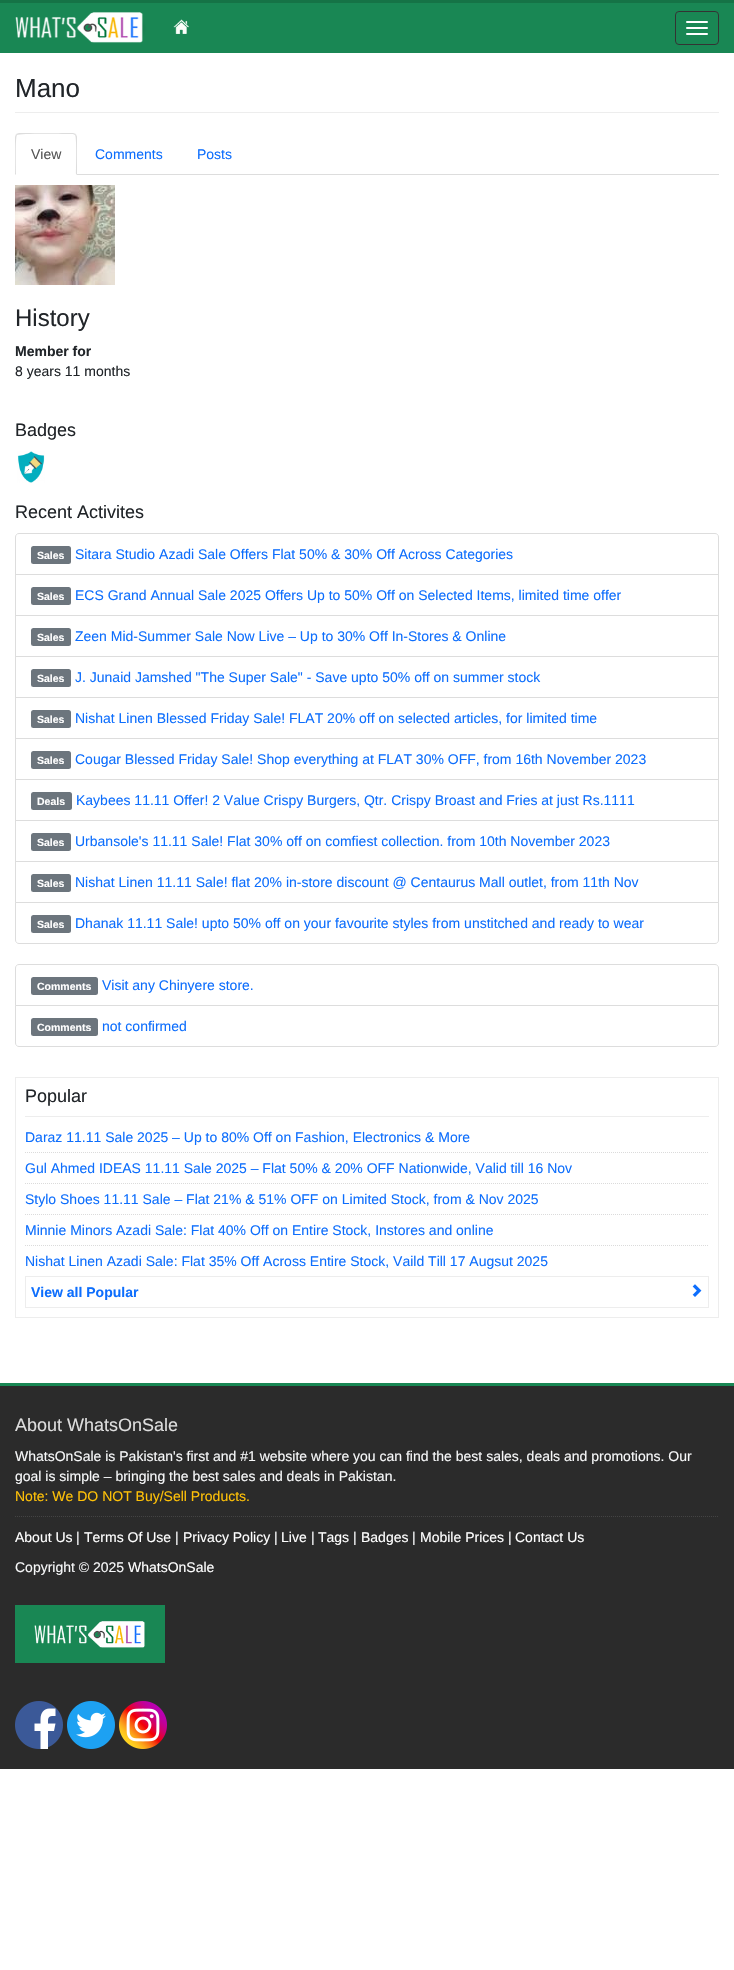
#include "include/core/SkBlurTypes.h"
#include "include/core/SkCanvas.h"
#include "include/core/SkData.h"
#include "include/core/SkFont.h"
#include "include/core/SkFontMgr.h"
#include "include/core/SkImage.h"
#include "include/core/SkMaskFilter.h"
#include "include/core/SkPaint.h"
#include "include/core/SkPathBuilder.h"
#include "include/core/SkTextBlob.h"
#include "include/effects/SkDashPathEffect.h"
#include "include/effects/SkGradientShader.h"
#include "include/utils/SkParsePath.h"

extern sk_sp<SkFontMgr> fontMgr;

void draw(SkCanvas* canvas) {
    SkPaint p;
    p.setAntiAlias(true);
    auto font = [&](const char* family, int weight, float size, bool italic = false) {
        SkFontStyle style(weight, SkFontStyle::kNormal_Width,
            italic ? SkFontStyle::kItalic_Slant : SkFontStyle::kUpright_Slant);
        SkFont result(fontMgr->matchFamilyStyle(family, style), size);
        result.setSubpixel(true);
        return result;
    };
    auto drawPhoto = [&](const char* path, float l, float t, float r, float b) {
        auto image = SkImages::DeferredFromEncodedData(SkData::MakeFromFileName(path));
        canvas->drawImageRect(image, SkRect::MakeLTRB(l, t, r, b), SkSamplingOptions());
    };
    canvas->clear(0xFFFFFFFF);
    p.setColor(0xFF198754);
    canvas->drawRect(SkRect::MakeLTRB(0, 3, 734, 53), p);
    p.setColor(0xFF157346);
    canvas->drawRect(SkRect::MakeLTRB(0, 0, 734, 3), p);
    drawPhoto("media/1.png", 15, 12, 189, 43);
    p.setStyle(SkPaint::kStroke_Style);
    p.setStrokeWidth(1);
    p.setColor(0xFF333333);
    canvas->drawRoundRect(SkRect::MakeLTRB(675.5f, 11.5f, 718.5f, 44.5f), 3.5f, 3.5f, p);
    p.setStyle(SkPaint::kFill_Style);
    p.setColor(0xFFFFFFFF);
    canvas->drawRoundRect(SkRect::MakeLTRB(686, 21, 708, 23), 1, 1, p);
    canvas->drawRoundRect(SkRect::MakeLTRB(686, 27, 708, 29), 1, 1, p);
    canvas->drawRoundRect(SkRect::MakeLTRB(686, 33, 708, 35), 1, 1, p);
    p.setColor(0xFFEDEDED);
    canvas->drawRect(SkRect::MakeLTRB(15, 112, 719, 113), p);
    auto font1 = font("Liberation Sans", 400, 26);
    p.setColor(0xFF212529);
    canvas->drawString("Mano", 15, 97, font1, p);
    p.setColor(0xFFDDDDDD);
    canvas->drawRect(SkRect::MakeLTRB(77, 174, 719, 175), p);
    canvas->drawPath(SkPathBuilder().moveTo(19, 133).lineTo(16, 134).lineTo(17, 135).cubicTo(19, 133, 68, 134, 73, 134).lineTo(75, 135).lineTo(76, 134).lineTo(73, 133).close().detach(), p);
    canvas->drawPath(SkPathBuilder().moveTo(77, 175).lineTo(77, 137).cubicTo(77, 136, 76, 135, 76, 134).lineTo(75, 135).cubicTo(77, 137, 76, 169, 76, 174).close().moveTo(15, 175).lineTo(16, 174).cubicTo(16, 169, 15, 137, 17, 135).lineTo(16, 134).lineTo(15, 137).close().detach(), p);
    auto font2 = font("Liberation Sans", 400, 14);
    p.setColor(0xFF555555);
    canvas->drawString("View", 31, 159, font2, p);
    p.setColor(0xFF0D6EFD);
    canvas->drawString("Comments", 95, 159, font2, p);
    canvas->drawString("Posts", 197, 159, font2, p);
    drawPhoto("media/2.png", 15, 185, 115, 285);
    auto font3 = font("Liberation Sans", 400, 24);
    p.setColor(0xFF212529);
    canvas->drawString("History", 15, 326, font3, p);
    auto font4 = font("Liberation Sans", 700, 14);
    canvas->drawString("Member for", 15, 356, font4, p);
    canvas->drawString("8 years 11 months", 15, 376, font2, p);
    auto font5 = font("Liberation Sans", 400, 18);
    canvas->drawString("Badges", 15, 436, font5, p);
    drawPhoto("media/3.png", 17, 451, 45, 483);
    canvas->drawString("Recent Activites", 15, 518, font5, p);
    p.setStyle(SkPaint::kStroke_Style);
    p.setColor(0xFFDDDDDD);
    canvas->drawPath(SkPathBuilder().moveTo(19, 533.5f).lineTo(715, 533.5f).cubicTo(717, 533.5f, 718.5f, 535, 718.5f, 537).lineTo(718.5f, 574.5f).lineTo(15.5f, 574.5f).lineTo(15.5f, 537).cubicTo(15.5f, 535, 17, 533.5f, 19, 533.5f).close().detach(), p);
    p.setStyle(SkPaint::kFill_Style);
    p.setColor(0xFF6C757D);
    canvas->drawRoundRect(SkRect::MakeLTRB(31, 546, 71, 564), 2.5f, 2.5f, p);
    auto font6 = font("Liberation Sans", 700, 10.5f);
    p.setColor(0xFFFFFFFF);
    canvas->drawString("Sales", 37, 559, font6, p);
    p.setColor(0xFF0D6EFD);
    canvas->drawString("Sitara Studio Azadi Sale Offers Flat 50% & 30% Off Across Categories", 75, 559, font2, p);
    p.setStyle(SkPaint::kStroke_Style);
    p.setColor(0xFFDDDDDD);
    canvas->drawRect(SkRect::MakeLTRB(15.5f, 574.5f, 718.5f, 615.5f), p);
    p.setStyle(SkPaint::kFill_Style);
    p.setColor(0xFF6C757D);
    canvas->drawRoundRect(SkRect::MakeLTRB(31, 587, 71, 605), 2.5f, 2.5f, p);
    p.setColor(0xFFFFFFFF);
    canvas->drawString("Sales", 37, 600, font6, p);
    p.setColor(0xFF0D6EFD);
    canvas->drawString("ECS Grand Annual Sale 2025 Offers Up to 50% Off on Selected Items, limited time offer", 75, 600, font2, p);
    p.setStyle(SkPaint::kStroke_Style);
    p.setColor(0xFFDDDDDD);
    canvas->drawRect(SkRect::MakeLTRB(15.5f, 615.5f, 718.5f, 656.5f), p);
    p.setStyle(SkPaint::kFill_Style);
    p.setColor(0xFF6C757D);
    canvas->drawRoundRect(SkRect::MakeLTRB(31, 628, 71, 646), 2.5f, 2.5f, p);
    p.setColor(0xFFFFFFFF);
    canvas->drawString("Sales", 37, 641, font6, p);
    p.setColor(0xFF0D6EFD);
    canvas->drawString("Zeen Mid-Summer Sale Now Live – Up to 30% Off In-Stores & Online", 75, 641, font2, p);
    p.setStyle(SkPaint::kStroke_Style);
    p.setColor(0xFFDDDDDD);
    canvas->drawRect(SkRect::MakeLTRB(15.5f, 656.5f, 718.5f, 697.5f), p);
    p.setStyle(SkPaint::kFill_Style);
    p.setColor(0xFF6C757D);
    canvas->drawRoundRect(SkRect::MakeLTRB(31, 669, 71, 687), 2.5f, 2.5f, p);
    p.setColor(0xFFFFFFFF);
    canvas->drawString("Sales", 37, 682, font6, p);
    p.setColor(0xFF0D6EFD);
    canvas->drawString("J. Junaid Jamshed \"The Super Sale\" - Save upto 50% off on summer stock", 75, 682, font2, p);
    p.setStyle(SkPaint::kStroke_Style);
    p.setColor(0xFFDDDDDD);
    canvas->drawRect(SkRect::MakeLTRB(15.5f, 697.5f, 718.5f, 738.5f), p);
    p.setStyle(SkPaint::kFill_Style);
    p.setColor(0xFF6C757D);
    canvas->drawRoundRect(SkRect::MakeLTRB(31, 710, 71, 728), 2.5f, 2.5f, p);
    p.setColor(0xFFFFFFFF);
    canvas->drawString("Sales", 37, 723, font6, p);
    p.setColor(0xFF0D6EFD);
    canvas->drawString("Nishat Linen Blessed Friday Sale! FLAT 20% off on selected articles, for limited time", 75, 723, font2, p);
    p.setStyle(SkPaint::kStroke_Style);
    p.setColor(0xFFDDDDDD);
    canvas->drawRect(SkRect::MakeLTRB(15.5f, 738.5f, 718.5f, 779.5f), p);
    p.setStyle(SkPaint::kFill_Style);
    p.setColor(0xFF6C757D);
    canvas->drawRoundRect(SkRect::MakeLTRB(31, 751, 71, 769), 2.5f, 2.5f, p);
    p.setColor(0xFFFFFFFF);
    canvas->drawString("Sales", 37, 764, font6, p);
    p.setColor(0xFF0D6EFD);
    canvas->drawString("Cougar Blessed Friday Sale! Shop everything at FLAT 30% OFF, from 16th November 2023", 75, 764, font2, p);
    p.setStyle(SkPaint::kStroke_Style);
    p.setColor(0xFFDDDDDD);
    canvas->drawRect(SkRect::MakeLTRB(15.5f, 779.5f, 718.5f, 820.5f), p);
    p.setStyle(SkPaint::kFill_Style);
    p.setColor(0xFF6C757D);
    canvas->drawRoundRect(SkRect::MakeLTRB(31, 792, 72, 810), 2.5f, 2.5f, p);
    p.setColor(0xFFFFFFFF);
    canvas->drawString("Deals", 37, 805, font6, p);
    p.setColor(0xFF0D6EFD);
    canvas->drawString("Kaybees 11.11 Offer! 2 Value Crispy Burgers, Qtr. Crispy Broast and Fries at just Rs.1111", 76, 805, font2, p);
    p.setStyle(SkPaint::kStroke_Style);
    p.setColor(0xFFDDDDDD);
    canvas->drawRect(SkRect::MakeLTRB(15.5f, 820.5f, 718.5f, 861.5f), p);
    p.setStyle(SkPaint::kFill_Style);
    p.setColor(0xFF6C757D);
    canvas->drawRoundRect(SkRect::MakeLTRB(31, 833, 71, 851), 2.5f, 2.5f, p);
    p.setColor(0xFFFFFFFF);
    canvas->drawString("Sales", 37, 846, font6, p);
    p.setColor(0xFF0D6EFD);
    canvas->drawString("Urbansole's 11.11 Sale! Flat 30% off on comfiest collection. from 10th November 2023", 75, 846, font2, p);
    p.setStyle(SkPaint::kStroke_Style);
    p.setColor(0xFFDDDDDD);
    canvas->drawRect(SkRect::MakeLTRB(15.5f, 861.5f, 718.5f, 902.5f), p);
    p.setStyle(SkPaint::kFill_Style);
    p.setColor(0xFF6C757D);
    canvas->drawRoundRect(SkRect::MakeLTRB(31, 874, 71, 892), 2.5f, 2.5f, p);
    p.setColor(0xFFFFFFFF);
    canvas->drawString("Sales", 37, 887, font6, p);
    p.setColor(0xFF0D6EFD);
    canvas->drawString("Nishat Linen 11.11 Sale! flat 20% in-store discount @ Centaurus Mall outlet, from 11th Nov", 75, 887, font2, p);
    p.setColor(0xFFFFFFFF);
    canvas->drawPath(SkPathBuilder().moveTo(15.5f, 902.5f).lineTo(718.5f, 902.5f).lineTo(718.5f, 940).cubicTo(718.5f, 942, 717, 943.5f, 715, 943.5f).lineTo(19, 943.5f).cubicTo(17, 943.5f, 15.5f, 942, 15.5f, 940).close().detach(), p);
    p.setStyle(SkPaint::kStroke_Style);
    p.setColor(0xFFDDDDDD);
    canvas->drawPath(SkPathBuilder().moveTo(15.5f, 902.5f).lineTo(718.5f, 902.5f).lineTo(718.5f, 940).cubicTo(718.5f, 942, 717, 943.5f, 715, 943.5f).lineTo(19, 943.5f).cubicTo(17, 943.5f, 15.5f, 942, 15.5f, 940).close().detach(), p);
    p.setStyle(SkPaint::kFill_Style);
    p.setColor(0xFF6C757D);
    canvas->drawRoundRect(SkRect::MakeLTRB(31, 915, 71, 933), 2.5f, 2.5f, p);
    p.setColor(0xFFFFFFFF);
    canvas->drawString("Sales", 37, 928, font6, p);
    p.setColor(0xFF0D6EFD);
    canvas->drawString("Dhanak 11.11 Sale! upto 50% off on your favourite styles from unstitched and ready to wear", 75, 928, font2, p);
    p.setStyle(SkPaint::kStroke_Style);
    p.setColor(0xFFDDDDDD);
    canvas->drawPath(SkPathBuilder().moveTo(19, 964.5f).lineTo(715, 964.5f).cubicTo(717, 964.5f, 718.5f, 966, 718.5f, 968).lineTo(718.5f, 1005.5f).lineTo(15.5f, 1005.5f).lineTo(15.5f, 968).cubicTo(15.5f, 966, 17, 964.5f, 19, 964.5f).close().detach(), p);
    p.setStyle(SkPaint::kFill_Style);
    p.setColor(0xFF6C757D);
    canvas->drawRoundRect(SkRect::MakeLTRB(31, 977, 98, 995), 2.5f, 2.5f, p);
    p.setColor(0xFFFFFFFF);
    canvas->drawString("Comments", 37, 990, font6, p);
    p.setColor(0xFF0D6EFD);
    canvas->drawString("Visit any Chinyere store.", 102, 990, font2, p);
    p.setColor(0xFFFFFFFF);
    canvas->drawPath(SkPathBuilder().moveTo(15.5f, 1005.5f).lineTo(718.5f, 1005.5f).lineTo(718.5f, 1043).cubicTo(718.5f, 1045, 717, 1046.5f, 715, 1046.5f).lineTo(19, 1046.5f).cubicTo(17, 1046.5f, 15.5f, 1045, 15.5f, 1043).close().detach(), p);
    p.setStyle(SkPaint::kStroke_Style);
    p.setColor(0xFFDDDDDD);
    canvas->drawPath(SkPathBuilder().moveTo(15.5f, 1005.5f).lineTo(718.5f, 1005.5f).lineTo(718.5f, 1043).cubicTo(718.5f, 1045, 717, 1046.5f, 715, 1046.5f).lineTo(19, 1046.5f).cubicTo(17, 1046.5f, 15.5f, 1045, 15.5f, 1043).close().detach(), p);
    p.setStyle(SkPaint::kFill_Style);
    p.setColor(0xFF6C757D);
    canvas->drawRoundRect(SkRect::MakeLTRB(31, 1018, 98, 1036), 2.5f, 2.5f, p);
    p.setColor(0xFFFFFFFF);
    canvas->drawString("Comments", 37, 1031, font6, p);
    p.setColor(0xFF0D6EFD);
    canvas->drawString("not confirmed", 102, 1031, font2, p);
    p.setStyle(SkPaint::kStroke_Style);
    p.setColor(0xFFEDEDED);
    canvas->drawRect(SkRect::MakeLTRB(15.5f, 1077.5f, 718.5f, 1317.5f), p);
    p.setStyle(SkPaint::kFill_Style);
    canvas->drawRect(SkRect::MakeLTRB(25, 1116, 709, 1117), p);
    p.setColor(0xFF212529);
    canvas->drawString("Popular", 25, 1102, font5, p);
    p.setStyle(SkPaint::kStroke_Style);
    p.setColor(0xFFDBDBDB);
    p.setPathEffect(SkDashPathEffect::Make({{1, 1}}, 0));
    canvas->drawPath(SkPathBuilder().moveTo(25, 1152.5f).lineTo(709, 1152.5f).detach(), p);
    p.setPathEffect(nullptr);
    p.setStyle(SkPaint::kFill_Style);
    p.setColor(0xFF0D6EFD);
    canvas->drawString("Daraz 11.11 Sale 2025 – Up to 80% Off on Fashion, Electronics & More", 25, 1142, font2, p);
    p.setStyle(SkPaint::kStroke_Style);
    p.setColor(0xFFDBDBDB);
    p.setPathEffect(SkDashPathEffect::Make({{1, 1}}, 0));
    canvas->drawPath(SkPathBuilder().moveTo(25, 1183.5f).lineTo(709, 1183.5f).detach(), p);
    p.setPathEffect(nullptr);
    p.setStyle(SkPaint::kFill_Style);
    p.setColor(0xFF0D6EFD);
    canvas->drawString("Gul Ahmed IDEAS 11.11 Sale 2025 – Flat 50% & 20% OFF Nationwide, Valid till 16 Nov", 25, 1173, font2, p);
    p.setStyle(SkPaint::kStroke_Style);
    p.setColor(0xFFDBDBDB);
    p.setPathEffect(SkDashPathEffect::Make({{1, 1}}, 0));
    canvas->drawPath(SkPathBuilder().moveTo(25, 1214.5f).lineTo(709, 1214.5f).detach(), p);
    p.setPathEffect(nullptr);
    p.setStyle(SkPaint::kFill_Style);
    p.setColor(0xFF0D6EFD);
    canvas->drawString("Stylo Shoes 11.11 Sale – Flat 21% & 51% OFF on Limited Stock, from & Nov 2025", 25, 1204, font2, p);
    p.setStyle(SkPaint::kStroke_Style);
    p.setColor(0xFFDBDBDB);
    p.setPathEffect(SkDashPathEffect::Make({{1, 1}}, 0));
    canvas->drawPath(SkPathBuilder().moveTo(25, 1245.5f).lineTo(709, 1245.5f).detach(), p);
    p.setPathEffect(nullptr);
    p.setStyle(SkPaint::kFill_Style);
    p.setColor(0xFF0D6EFD);
    canvas->drawString("Minnie Minors Azadi Sale: Flat 40% Off on Entire Stock, Instores and online", 25, 1235, font2, p);
    canvas->drawString("Nishat Linen Azadi Sale: Flat 35% Off Across Entire Stock, Vaild Till 17 Augsut 2025", 25, 1266, font2, p);
    p.setStyle(SkPaint::kStroke_Style);
    p.setColor(0xFFEDEDED);
    canvas->drawRect(SkRect::MakeLTRB(25.5f, 1276.5f, 708.5f, 1307.5f), p);
    p.setStyle(SkPaint::kFill_Style);
    p.setColor(0xFF0D6EFD);
    canvas->drawString("View all Popular", 31, 1297, font4, p);
    drawPhoto("media/4.png", 692, 1284, 702, 1297);
    p.setColor(0xFF2B2B2B);
    canvas->drawRect(SkRect::MakeLTRB(0, 1386, 734, 1769), p);
    p.setColor(0xFF198754);
    canvas->drawRect(SkRect::MakeLTRB(0, 1383, 734, 1386), p);
    p.setStyle(SkPaint::kStroke_Style);
    p.setColor(0xFF444444);
    p.setPathEffect(SkDashPathEffect::Make({{1, 1}}, 0));
    canvas->drawPath(SkPathBuilder().moveTo(15, 1516.5f).lineTo(719, 1516.5f).detach(), p);
    p.setPathEffect(nullptr);
    p.setStyle(SkPaint::kFill_Style);
    p.setColor(0xFFDDDDDD);
    canvas->drawString("About WhatsOnSale", 15, 1431, font5, p);
    p.setColor(0xFFF7F8F9);
    canvas->drawString("WhatsOnSale is Pakistan's first and #1 website where you can find the best sales, deals and promotions. Our", 15, 1461, font2, p);
    canvas->drawString("goal is simple – bringing the best sales and deals in Pakistan.", 15, 1481, font2, p);
    p.setColor(0xFFFFC107);
    canvas->drawString("Note: We DO NOT Buy/Sell Products.", 15, 1501, font2, p);
    p.setColor(0xFFFFFFFF);
    canvas->drawString("About Us", 15, 1542, font2, p);
    p.setColor(0xFFF7F8F9);
    canvas->drawString("|", 76, 1542, font2, p);
    p.setColor(0xFFFFFFFF);
    canvas->drawString("Terms Of Use", 84, 1542, font2, p);
    p.setColor(0xFFF7F8F9);
    canvas->drawString("|", 175, 1542, font2, p);
    p.setColor(0xFFFFFFFF);
    canvas->drawString("Privacy Policy", 183, 1542, font2, p);
    p.setColor(0xFFF7F8F9);
    canvas->drawString("|", 274, 1542, font2, p);
    p.setColor(0xFFFFFFFF);
    canvas->drawString("Live", 281, 1542, font2, p);
    p.setColor(0xFFF7F8F9);
    canvas->drawString("|", 311, 1542, font2, p);
    p.setColor(0xFFFFFFFF);
    canvas->drawString("Tags", 318, 1542, font2, p);
    p.setColor(0xFFF7F8F9);
    canvas->drawString("|", 353, 1542, font2, p);
    p.setColor(0xFFFFFFFF);
    canvas->drawString("Badges", 361, 1542, font2, p);
    p.setColor(0xFFF7F8F9);
    canvas->drawString("|", 412, 1542, font2, p);
    p.setColor(0xFFFFFFFF);
    canvas->drawString("Mobile Prices", 420, 1542, font2, p);
    p.setColor(0xFFF7F8F9);
    canvas->drawString("|", 508, 1542, font2, p);
    p.setColor(0xFFFFFFFF);
    canvas->drawString("Contact Us", 515, 1542, font2, p);
    p.setColor(0xFFF7F8F9);
    canvas->drawString("Copyright © 2025", 15, 1572, font2, p);
    p.setColor(0xFFFFFFFF);
    canvas->drawString("WhatsOnSale", 128, 1572, font2, p);
    p.setColor(0xFF198754);
    canvas->drawRect(SkRect::MakeLTRB(15, 1605, 165, 1663), p);
    drawPhoto("media/5.png", 34, 1621, 147, 1648);
    drawPhoto("media/6.png", 15, 1701, 63, 1749);
    drawPhoto("media/7.png", 67, 1701, 115, 1749);
    drawPhoto("media/8.png", 119, 1701, 167, 1749);
}
